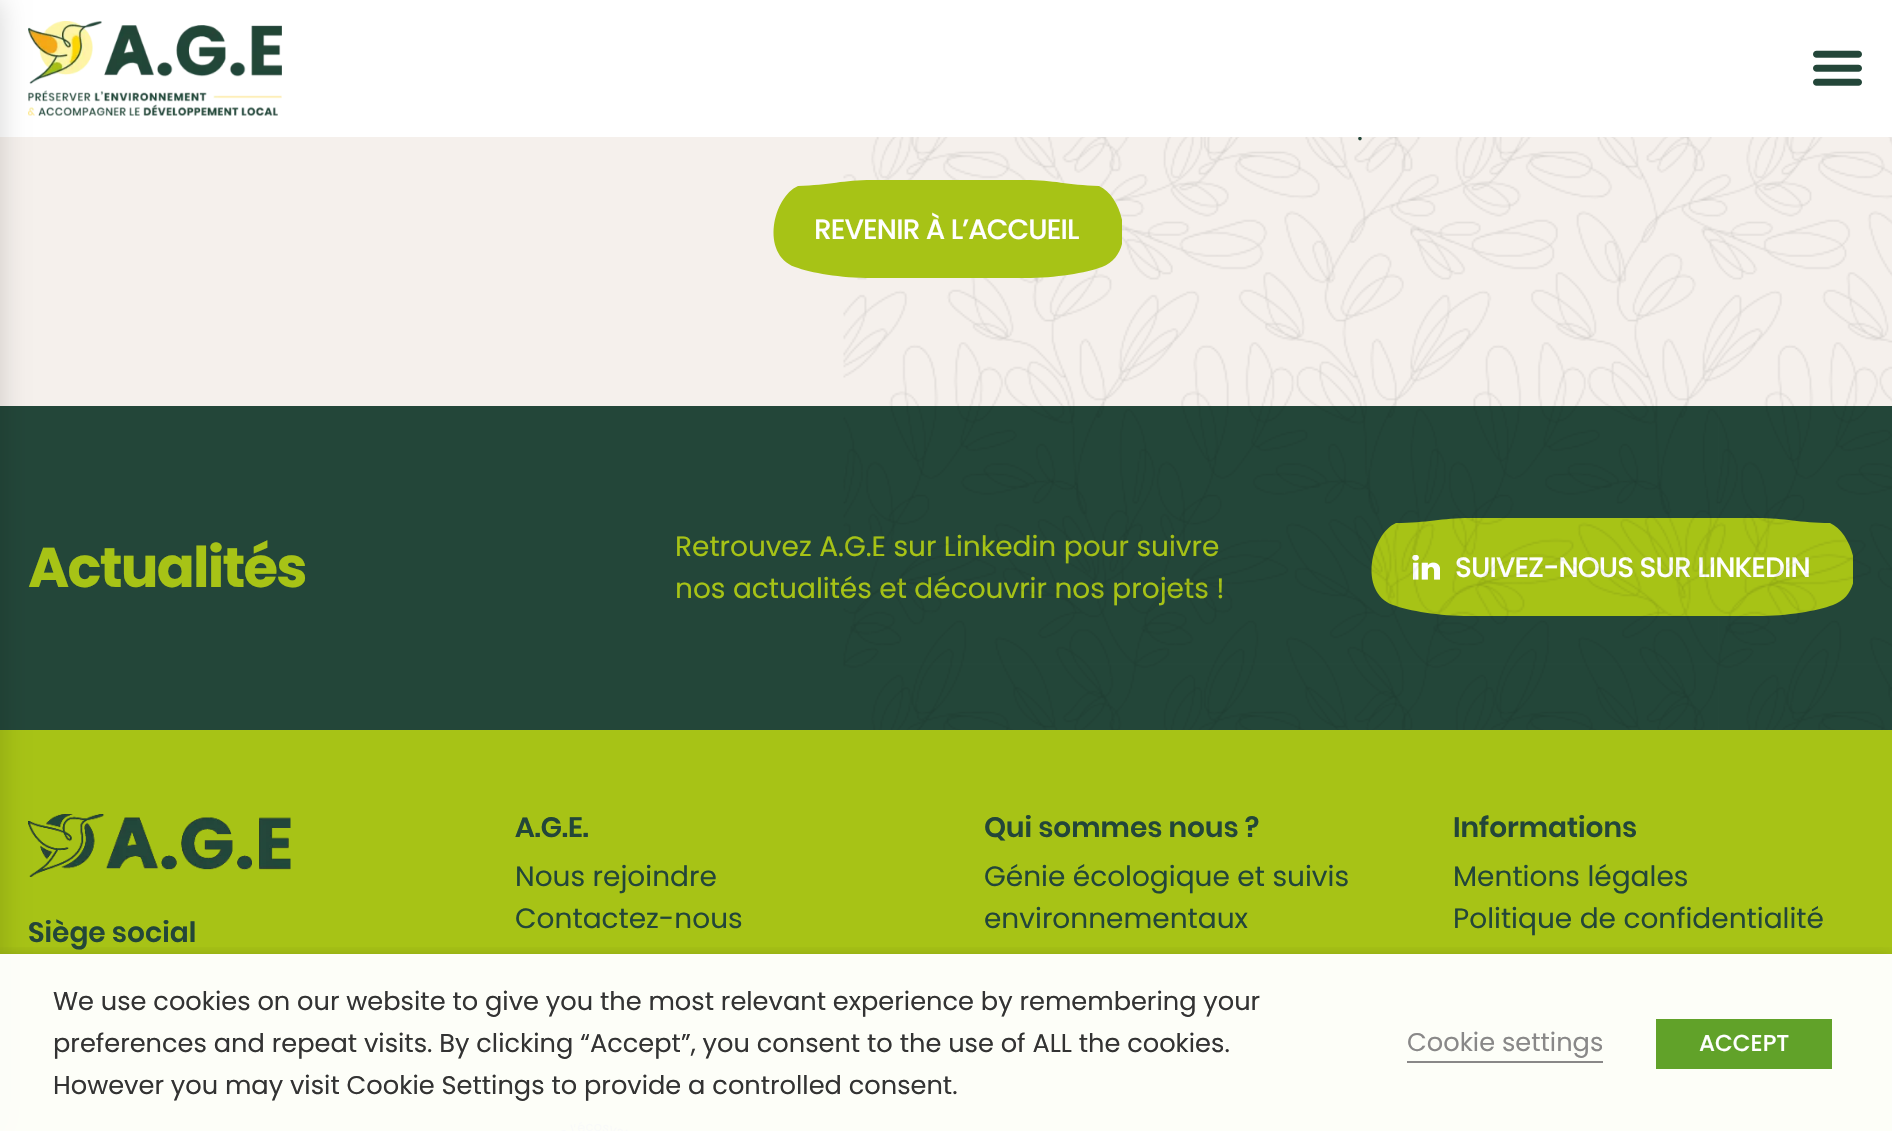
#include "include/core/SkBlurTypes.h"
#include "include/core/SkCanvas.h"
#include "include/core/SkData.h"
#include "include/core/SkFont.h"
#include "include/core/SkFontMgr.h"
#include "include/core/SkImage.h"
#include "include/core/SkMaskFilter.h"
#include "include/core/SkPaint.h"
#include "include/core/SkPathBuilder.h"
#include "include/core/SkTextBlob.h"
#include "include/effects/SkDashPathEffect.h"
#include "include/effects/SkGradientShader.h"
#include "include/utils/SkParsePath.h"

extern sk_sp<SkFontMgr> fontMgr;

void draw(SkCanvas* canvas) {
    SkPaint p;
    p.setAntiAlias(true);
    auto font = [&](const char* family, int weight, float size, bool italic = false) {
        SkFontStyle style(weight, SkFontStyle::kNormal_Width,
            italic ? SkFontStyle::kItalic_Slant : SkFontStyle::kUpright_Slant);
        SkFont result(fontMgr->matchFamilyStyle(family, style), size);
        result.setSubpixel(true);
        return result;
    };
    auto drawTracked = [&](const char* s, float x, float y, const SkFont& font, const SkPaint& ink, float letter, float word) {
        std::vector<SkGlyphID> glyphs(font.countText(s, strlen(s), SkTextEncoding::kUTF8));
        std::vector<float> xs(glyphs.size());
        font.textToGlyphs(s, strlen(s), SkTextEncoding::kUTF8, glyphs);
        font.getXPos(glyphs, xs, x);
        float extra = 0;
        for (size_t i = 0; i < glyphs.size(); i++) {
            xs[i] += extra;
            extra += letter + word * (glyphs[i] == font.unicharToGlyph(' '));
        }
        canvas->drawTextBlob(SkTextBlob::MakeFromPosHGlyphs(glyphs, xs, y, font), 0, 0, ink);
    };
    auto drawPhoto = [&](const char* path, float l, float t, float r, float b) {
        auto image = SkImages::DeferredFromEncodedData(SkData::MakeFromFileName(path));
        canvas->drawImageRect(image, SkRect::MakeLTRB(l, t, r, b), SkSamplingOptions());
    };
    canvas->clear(0xFFF5F0EC);
    p.setColor(0xFF234639);
    canvas->drawRect(SkRect::MakeLTRB(0, 406, 1892, 730), p);
    auto font1 = font("Poppins", 400, 28);
    p.setColor(0xFFA7C316);
    canvas->drawString("Retrouvez A.G.E sur Linkedin pour suivre", 675, 556, font1, p);
    canvas->drawString("nos actualités et découvrir nos projets !", 675, 598, font1, p);
    canvas->save();
    canvas->clipRect(SkRect::MakeLTRB(1754, 518, 1853, 618));
    canvas->drawPath(SkPathBuilder().moveTo(1757, 616).cubicTo(1788, 616, 1817, 611, 1833, 605).cubicTo(1869, 592, 1855, 534, 1830, 523).cubicTo(1799, 523, 1786, 518, 1757, 518).close().detach(), p);
    canvas->restore();
    canvas->drawPath(SkPathBuilder().moveTo(1470, 616).cubicTo(1439, 616, 1409, 611, 1393, 605).cubicTo(1358, 592, 1371, 534, 1396, 523).cubicTo(1428, 523, 1441, 518, 1470, 518).close().detach(), p);
    drawPhoto("media/4.png", 1412, 555, 1440, 580);
    canvas->drawRect(SkRect::MakeLTRB(1470, 518, 1757, 616), p);
    auto font2 = font("Poppins", 500, 28);
    p.setColor(0xFFFFFFFF);
    drawTracked("SUIVEZ-NOUS SUR LINKEDIN", 1455, 577, font2, p, -0.9f, 0);
    drawPhoto("media/3.png", 843, 137, 1892, 730);
    p.setColor(0xFF234639);
    canvas->drawString(".", 1357, 140, font1, p);
    p.setColor(0xFFFFFFFF);
    canvas->drawRect(SkRect::MakeLTRB(0, 0, 1892, 137), p);
    drawPhoto("media/1.png", 28, 21, 282, 116);
    drawPhoto("media/2.png", 1813, 50, 1862, 86);
    p.setColor(0xFFA7C316);
    canvas->drawRect(SkRect::MakeLTRB(0, 730, 1892, 1131), p);
    drawPhoto("media/5.png", 28, 814, 291, 877);
    p.setColor(0x29000000);
    p.setMaskFilter(SkMaskFilter::MakeBlur(kNormal_SkBlurStyle, 14));
    canvas->drawRect(SkRect::MakeLTRB(-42, 0, 0, 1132), p);
    p.setMaskFilter(nullptr);
    canvas->save();
    canvas->clipRect(SkRect::MakeLTRB(1022, 180, 1122, 280));
    p.setColor(0xFFA7C316);
    canvas->drawPath(SkPathBuilder().moveTo(1025, 278).cubicTo(1056, 278, 1086, 273, 1102, 267).cubicTo(1137, 254, 1124, 197, 1099, 186).cubicTo(1067, 185, 1054, 180, 1025, 180).close().detach(), p);
    canvas->restore();
    canvas->drawPath(SkPathBuilder().moveTo(872, 278).cubicTo(840, 278, 811, 273, 795, 267).cubicTo(760, 254, 773, 197, 798, 186).cubicTo(830, 185, 843, 180, 872, 180).close().detach(), p);
    canvas->drawRect(SkRect::MakeLTRB(872, 180, 1025, 278), p);
    p.setColor(0xFFFFFFFF);
    drawTracked("REVENIR À L’ACCUEIL", 814, 239, font2, p, -0.9f, 0);
    auto font3 = font("Poppins", 700, 56);
    p.setColor(0xFFA7C316);
    drawTracked("Actualités", 28, 587, font3, p, -1.75f, 0);
    auto font4 = font("Poppins", 600, 28);
    p.setColor(0xFF234639);
    canvas->drawString("Siège social", 28, 942, font4, p);
    canvas->drawString("A.G.E.", 515, 837, font4, p);
    canvas->drawString("Nous rejoindre", 515, 886, font1, p);
    canvas->drawString("Contactez-nous", 515, 928, font1, p);
    canvas->drawString("Qui sommes nous ?", 984, 837, font4, p);
    canvas->drawString("Génie écologique et suivis", 984, 886, font1, p);
    canvas->drawString("environnementaux", 984, 928, font1, p);
    canvas->drawString("Informations", 1453, 837, font4, p);
    canvas->drawString("Mentions légales", 1453, 886, font1, p);
    canvas->drawString("Politique de confidentialité", 1453, 928, font1, p);
    drawPhoto("media/6.png", 555, 1122, 628, 1131);
    canvas->save();
    canvas->clipRect(SkRect::MakeLTRB(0, 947, 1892, 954));
    p.setColor(0x80000000);
    p.setMaskFilter(SkMaskFilter::MakeBlur(kNormal_SkBlurStyle, 9));
    canvas->drawRect(SkRect::MakeLTRB(0, 963, 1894, 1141), p);
    p.setMaskFilter(nullptr);
    canvas->restore();
    p.setColor(0xF7FFFFFF);
    canvas->drawRect(SkRect::MakeLTRB(0, 954, 1892, 1131), p);
    auto font5 = font("Poppins", 400, 25.65f);
    p.setColor(0xFF333333);
    {
        const struct { const char* s; float x, y; } items[] = {
            {"We use cookies on our website to give you the most relevant experience by remembering your", 53, 1010},
            {"preferences and repeat visits. By clicking “Accept”, you consent to the use of ALL the cookies.", 53, 1052},
            {"However you may visit Cookie Settings to provide a controlled consent.", 53, 1094},
        };
        for (auto [s, x, y] : items) {
            canvas->drawString(s, x, y, font5, p);
        }
    }
    p.setColor(0xFF898888);
    canvas->drawString("Cookie settings", 1407, 1051, font5, p);
    canvas->drawRect(SkRect::MakeLTRB(1407, 1061, 1603, 1063), p);
    p.setColor(0xFF61A229);
    canvas->drawRect(SkRect::MakeLTRB(1656, 1019, 1832, 1069), p);
    auto font6 = font("Poppins", 500, 23);
    p.setColor(0xFFFFFFFF);
    canvas->drawString("ACCEPT", 1699, 1051, font6, p);
}
